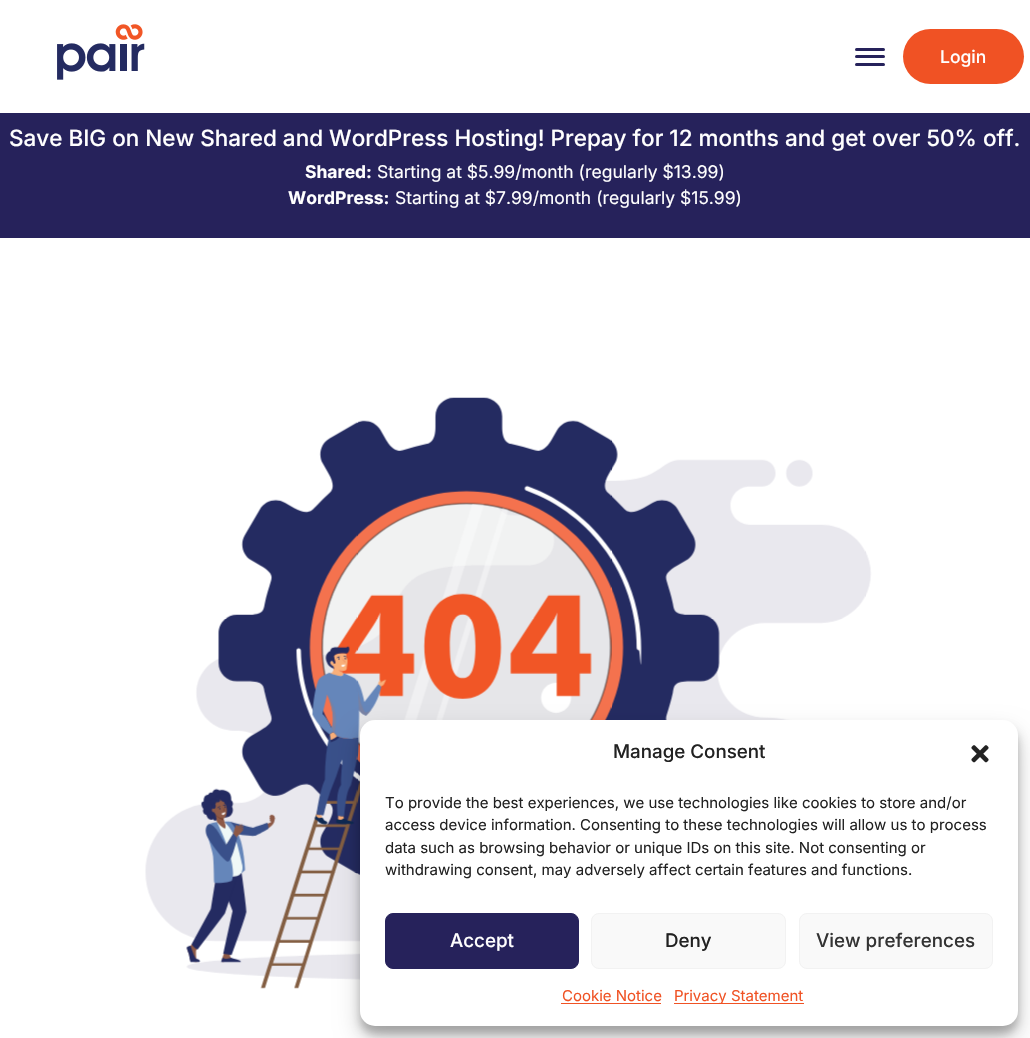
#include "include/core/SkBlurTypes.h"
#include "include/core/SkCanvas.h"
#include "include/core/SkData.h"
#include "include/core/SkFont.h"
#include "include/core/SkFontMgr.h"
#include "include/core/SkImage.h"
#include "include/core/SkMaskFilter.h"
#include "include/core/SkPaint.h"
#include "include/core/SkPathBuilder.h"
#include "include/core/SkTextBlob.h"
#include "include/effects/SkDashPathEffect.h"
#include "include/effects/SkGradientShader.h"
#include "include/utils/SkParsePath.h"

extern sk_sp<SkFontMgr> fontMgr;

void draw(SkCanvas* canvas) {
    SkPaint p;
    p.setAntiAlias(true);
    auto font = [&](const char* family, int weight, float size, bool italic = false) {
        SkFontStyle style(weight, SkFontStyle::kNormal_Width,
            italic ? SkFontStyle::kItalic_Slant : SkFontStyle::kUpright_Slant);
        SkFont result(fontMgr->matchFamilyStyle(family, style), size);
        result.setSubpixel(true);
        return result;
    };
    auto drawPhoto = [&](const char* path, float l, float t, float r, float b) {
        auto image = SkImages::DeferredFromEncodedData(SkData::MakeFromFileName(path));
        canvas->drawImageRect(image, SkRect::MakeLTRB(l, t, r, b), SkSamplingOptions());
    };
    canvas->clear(0xFFFFFFFF);
    drawPhoto("media/1.png", 57, 24, 145, 80);
    p.setColor(0xFF26225B);
    canvas->drawRoundRect(SkRect::MakeLTRB(855, 48, 885, 51), 1.5f, 1.5f, p);
    canvas->drawRoundRect(SkRect::MakeLTRB(855, 55, 885, 58), 1.5f, 1.5f, p);
    canvas->drawRoundRect(SkRect::MakeLTRB(855, 63, 885, 66), 1.5f, 1.5f, p);
    p.setColor(0xFFF05224);
    canvas->drawRoundRect(SkRect::MakeLTRB(903, 29, 1024, 84), 27.5f, 27.5f, p);
    auto font1 = font("Inter", 500, 17.5f);
    p.setColor(0xFFFFFFFF);
    canvas->drawString("Login", 940, 63, font1, p);
    p.setColor(0xFF26225B);
    canvas->drawRect(SkRect::MakeLTRB(0, 113, 1030, 238), p);
    auto font2 = font("Inter", 500, 22.5f);
    p.setColor(0xFFFFFFFF);
    canvas->drawString("Save BIG on New Shared and WordPress Hosting! Prepay for 12 months and get over 50% off.", 9, 146, font2, p);
    auto font3 = font("Inter", 700, 17.5f);
    canvas->drawString("Shared:", 305, 178, font3, p);
    auto font4 = font("Inter", 400, 17.5f);
    canvas->drawString("Starting at $5.99/month (regularly $13.99)", 377, 178, font4, p);
    canvas->drawString("WordPress:", 288, 204, font3, p);
    canvas->drawString("Starting at $7.99/month (regularly $15.99)", 395, 204, font4, p);
    drawPhoto("media/2.png", 145, 397, 872, 989);
    p.setColor(0x3B000000);
    p.setMaskFilter(SkMaskFilter::MakeBlur(kNormal_SkBlurStyle, 4));
    canvas->drawRoundRect(SkRect::MakeLTRB(360, 728, 1018, 1034), 15, 15, p);
    p.setMaskFilter(nullptr);
    p.setColor(0x30000000);
    p.setMaskFilter(SkMaskFilter::MakeBlur(kNormal_SkBlurStyle, 12.5f));
    canvas->drawRoundRect(SkRect::MakeLTRB(360, 733, 1018, 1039), 15, 15, p);
    p.setMaskFilter(nullptr);
    p.setColor(0xFFFFFFFF);
    canvas->drawRoundRect(SkRect::MakeLTRB(360, 720, 1018, 1026), 15, 15, p);
    auto font5 = font("Inter", 500, 18.75f);
    p.setColor(0xFF222222);
    canvas->drawString("Manage Consent", 613, 758, font5, p);
    drawPhoto("media/3.png", 971, 745, 989, 763);
    auto font6 = font("Inter", 400, 15);
    {
        const struct { const char* s; float x, y; } items[] = {
            {"To provide the best experiences, we use technologies like cookies to store and/or", 385, 808},
            {"access device information. Consenting to these technologies will allow us to process", 385, 830},
            {"data such as browsing behavior or unique IDs on this site. Not consenting or", 385, 853},
            {"withdrawing consent, may adversely affect certain features and functions.", 385, 875},
        };
        for (auto [s, x, y] : items) {
            canvas->drawString(s, x, y, font6, p);
        }
    }
    p.setColor(0xFF26225B);
    canvas->drawRoundRect(SkRect::MakeLTRB(385.5f, 913.5f, 578.5f, 968.5f), 7.5f, 7.5f, p);
    p.setStyle(SkPaint::kStroke_Style);
    p.setStrokeWidth(1);
    canvas->drawRoundRect(SkRect::MakeLTRB(385.5f, 913.5f, 578.5f, 968.5f), 7.5f, 7.5f, p);
    p.setStyle(SkPaint::kFill_Style);
    p.setColor(0xFFFFFFFF);
    canvas->drawString("Accept", 450, 947, font5, p);
    p.setColor(0xFFF9F9F9);
    canvas->drawRoundRect(SkRect::MakeLTRB(591.5f, 913.5f, 785.5f, 968.5f), 7.5f, 7.5f, p);
    p.setStyle(SkPaint::kStroke_Style);
    p.setColor(0xFFF2F2F2);
    canvas->drawRoundRect(SkRect::MakeLTRB(591.5f, 913.5f, 785.5f, 968.5f), 7.5f, 7.5f, p);
    p.setStyle(SkPaint::kFill_Style);
    p.setColor(0xFF222222);
    canvas->drawString("Deny", 665, 947, font5, p);
    p.setColor(0xFFF9F9F9);
    canvas->drawRoundRect(SkRect::MakeLTRB(799.5f, 913.5f, 992.5f, 968.5f), 7.5f, 7.5f, p);
    p.setStyle(SkPaint::kStroke_Style);
    p.setColor(0xFFF2F2F2);
    canvas->drawRoundRect(SkRect::MakeLTRB(799.5f, 913.5f, 992.5f, 968.5f), 7.5f, 7.5f, p);
    p.setStyle(SkPaint::kFill_Style);
    p.setColor(0xFF333333);
    canvas->drawString("View preferences", 816, 947, font5, p);
    p.setColor(0xFFF05224);
    canvas->drawString("Cookie Notice", 562, 1001, font6, p);
    canvas->drawRect(SkRect::MakeLTRB(561, 1003, 661, 1004), p);
    canvas->drawRect(SkRect::MakeLTRB(674, 1003, 804, 1004), p);
    canvas->drawString("Privacy Statement", 674, 1001, font6, p);
}
